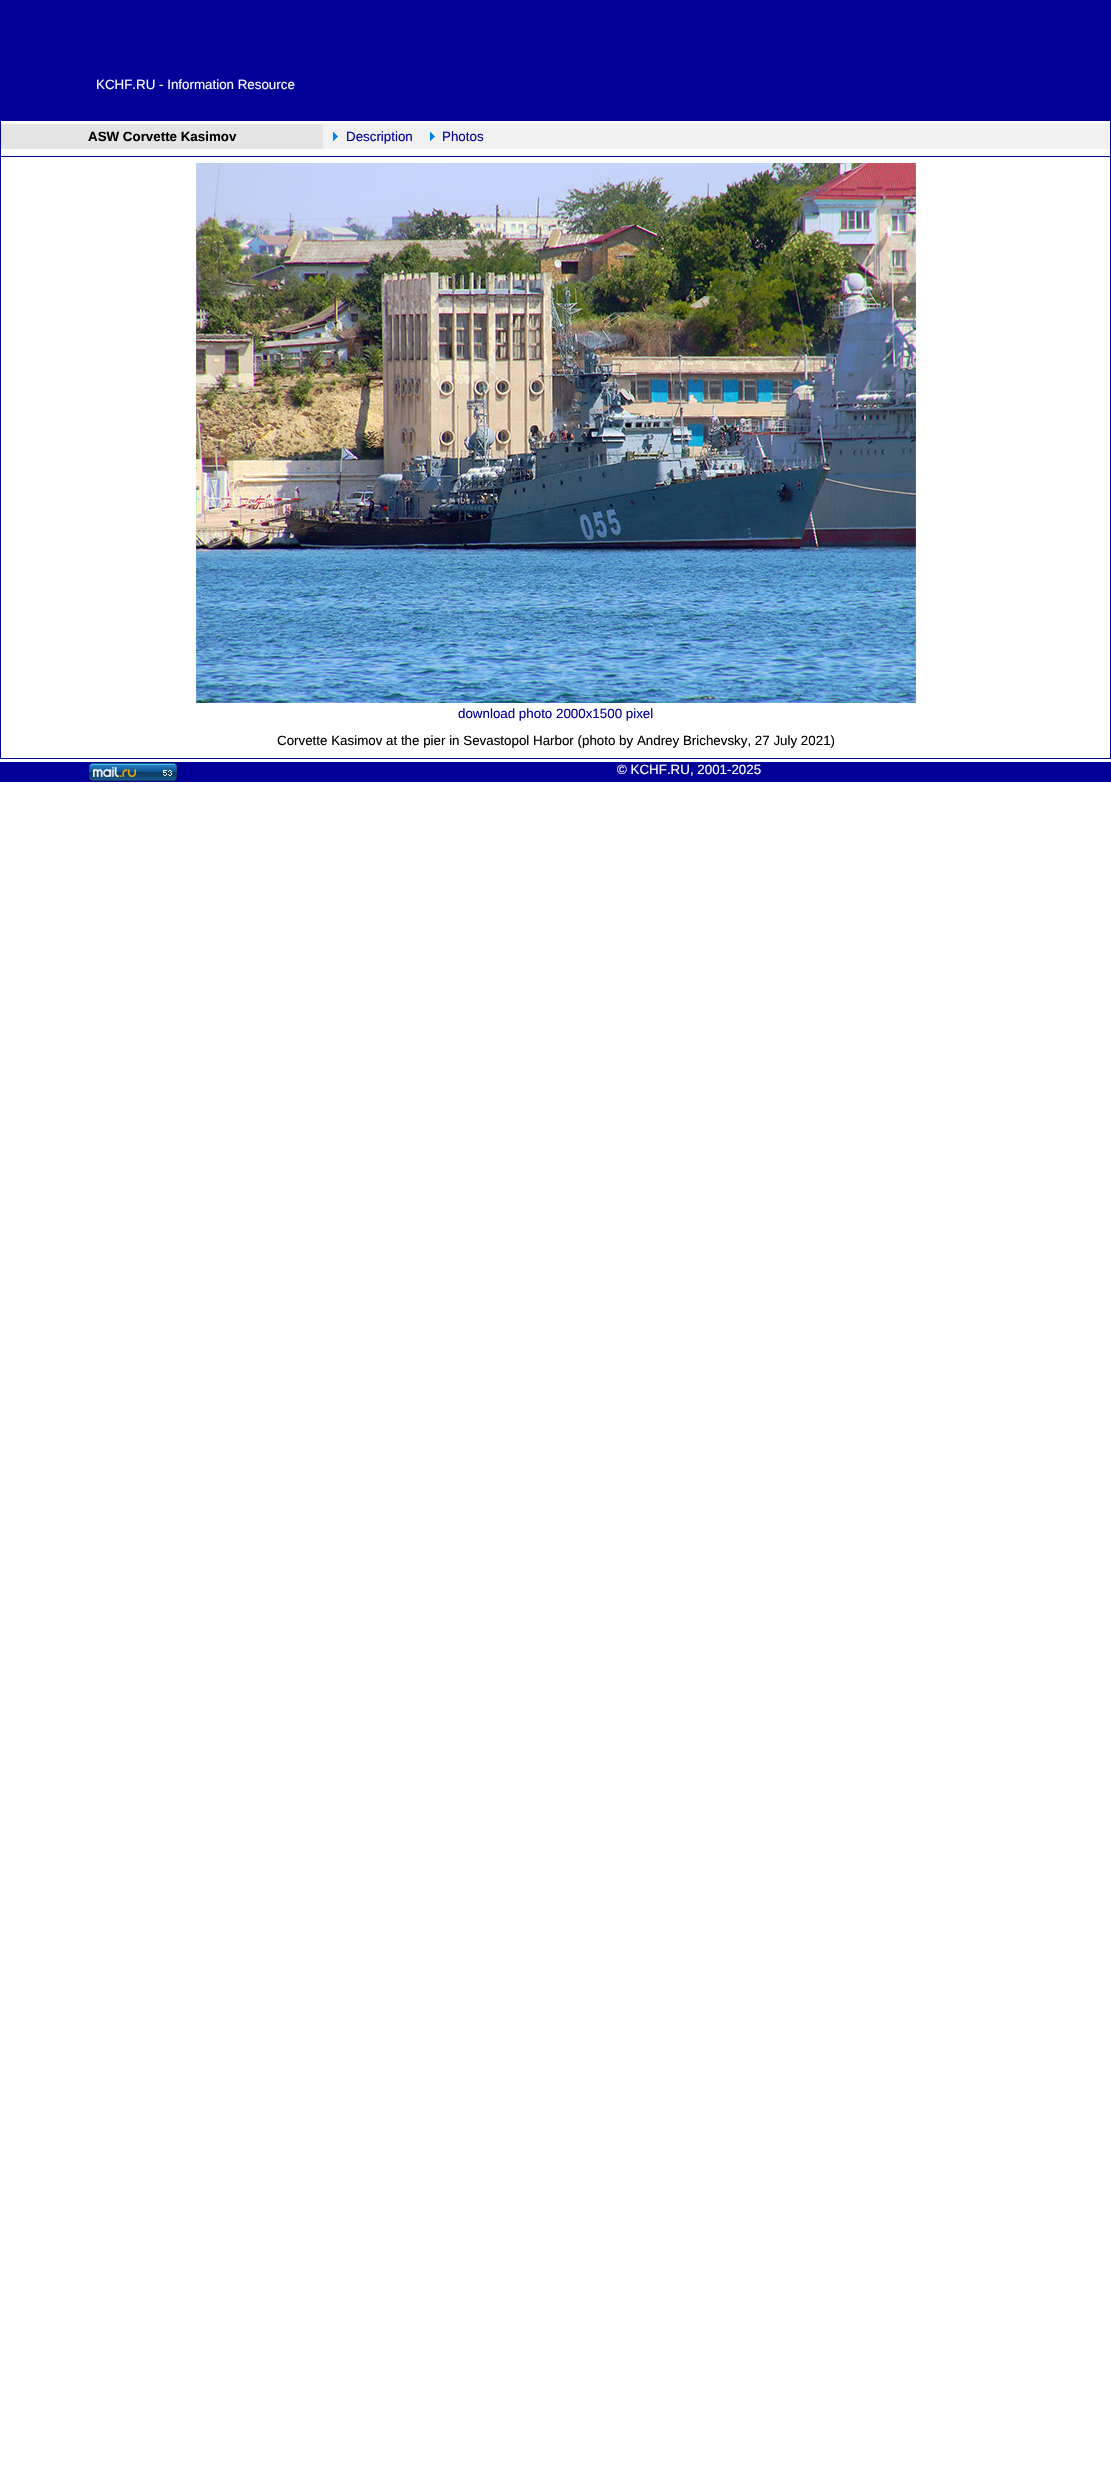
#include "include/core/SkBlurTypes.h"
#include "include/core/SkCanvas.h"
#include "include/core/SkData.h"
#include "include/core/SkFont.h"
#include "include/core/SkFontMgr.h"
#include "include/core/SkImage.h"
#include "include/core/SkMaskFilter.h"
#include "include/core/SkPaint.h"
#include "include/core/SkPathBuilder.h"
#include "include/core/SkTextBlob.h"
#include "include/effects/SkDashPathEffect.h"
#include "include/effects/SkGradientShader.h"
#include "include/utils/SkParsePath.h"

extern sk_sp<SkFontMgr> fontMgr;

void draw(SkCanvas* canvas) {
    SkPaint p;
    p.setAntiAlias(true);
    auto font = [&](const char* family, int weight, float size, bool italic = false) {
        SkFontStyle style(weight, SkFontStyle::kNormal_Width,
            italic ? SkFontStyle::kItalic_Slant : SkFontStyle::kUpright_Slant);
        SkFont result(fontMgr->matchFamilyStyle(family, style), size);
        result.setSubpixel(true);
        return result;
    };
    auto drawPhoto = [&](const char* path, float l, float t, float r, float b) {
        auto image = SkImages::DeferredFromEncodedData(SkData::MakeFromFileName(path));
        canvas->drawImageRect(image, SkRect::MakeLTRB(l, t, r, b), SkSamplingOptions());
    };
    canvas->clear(0xFFFFFFFF);
    p.setColor(0xFF000099);
    canvas->drawRect(SkRect::MakeLTRB(0, 0, 1111, 759), p);
    p.setColor(0xFFFFFFFF);
    canvas->drawRect(SkRect::MakeLTRB(1, 121, 1110, 758), p);
    auto font1 = font("Liberation Sans", 400, 13.35f);
    canvas->drawString("KCHF.RU - Information Resource", 96, 89, font1, p);
    p.setColor(0xFFE4E4E4);
    canvas->drawRect(SkRect::MakeLTRB(1, 124, 323, 149), p);
    auto font2 = font("Liberation Sans", 700, 13.35f);
    p.setColor(0xFF000000);
    canvas->drawString("ASW Corvette Kasimov", 88, 141, font2, p);
    p.setColor(0xFFF1F1F1);
    canvas->drawRect(SkRect::MakeLTRB(323, 124, 1110, 149), p);
    drawPhoto("media/1.png", 333, 132, 338, 141);
    p.setColor(0xFF000099);
    canvas->drawString("Description", 346, 141, font1, p);
    drawPhoto("media/1.png", 430, 132, 435, 141);
    canvas->drawString("Photos", 442, 141, font1, p);
    canvas->drawRect(SkRect::MakeLTRB(1, 156, 1110, 157), p);
    drawPhoto("media/2.png", 196, 163, 916, 703);
    canvas->drawString("download photo 2000x1500 pixel", 458, 718, font1, p);
    p.setColor(0xFF000000);
    canvas->drawString("Corvette Kasimov at the pier in Sevastopol Harbor (photo by Andrey Brichevsky, 27 July 2021)", 277, 745, font1, p);
    p.setColor(0xFF000099);
    canvas->drawRect(SkRect::MakeLTRB(0, 762, 1111, 782), p);
    drawPhoto("media/3.png", 89, 763, 177, 781);
    p.setColor(0xFFFFFFFF);
    canvas->drawString("© KCHF.RU, 2001-2025", 617, 774, font1, p);
}
